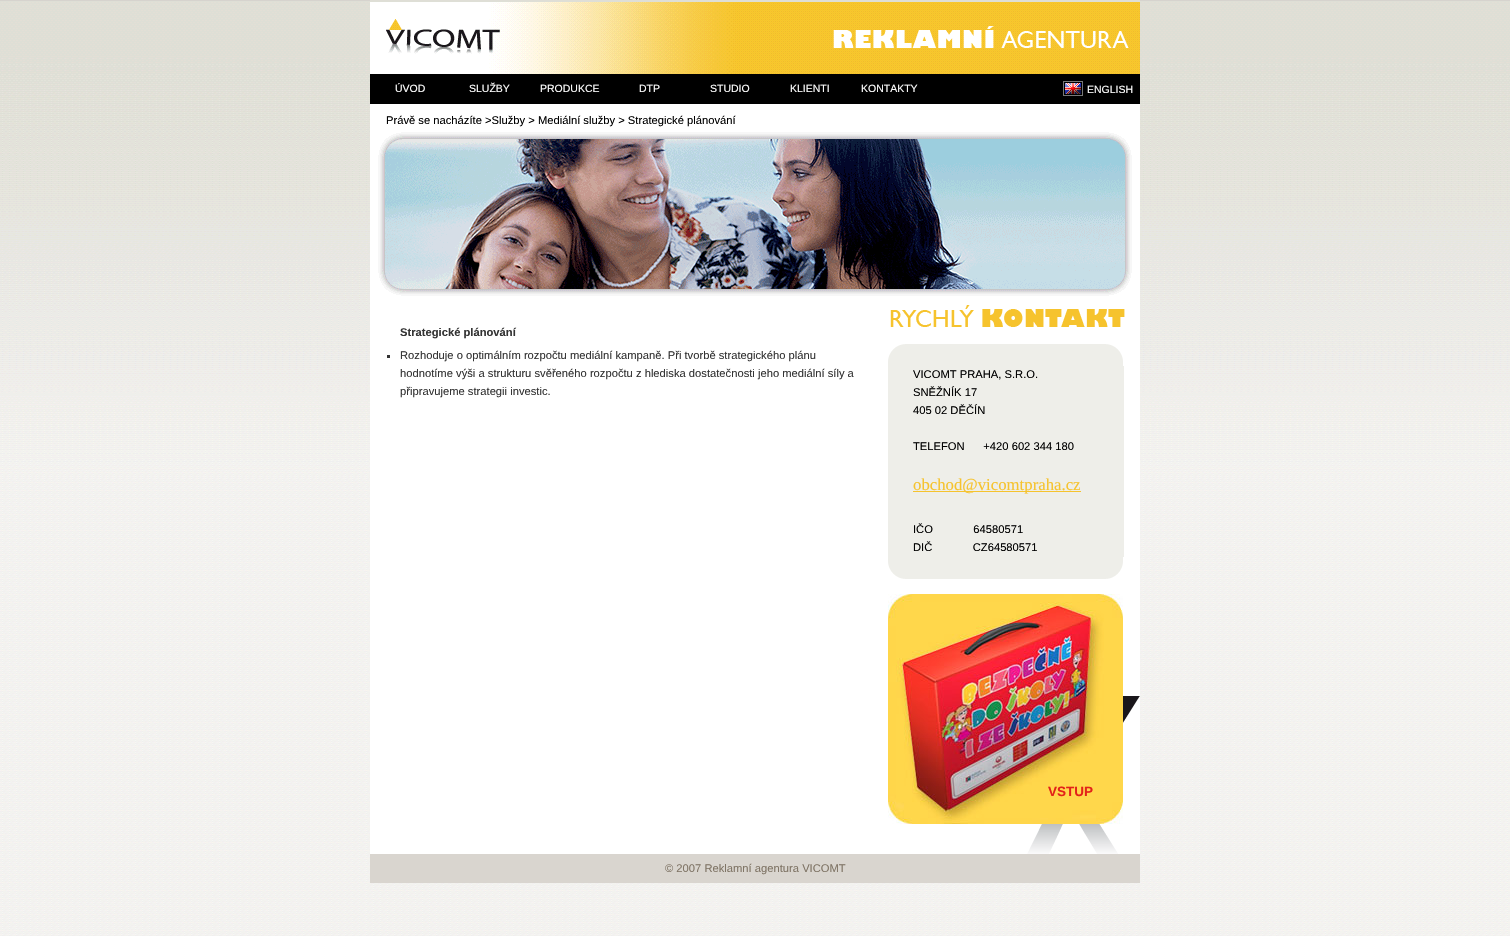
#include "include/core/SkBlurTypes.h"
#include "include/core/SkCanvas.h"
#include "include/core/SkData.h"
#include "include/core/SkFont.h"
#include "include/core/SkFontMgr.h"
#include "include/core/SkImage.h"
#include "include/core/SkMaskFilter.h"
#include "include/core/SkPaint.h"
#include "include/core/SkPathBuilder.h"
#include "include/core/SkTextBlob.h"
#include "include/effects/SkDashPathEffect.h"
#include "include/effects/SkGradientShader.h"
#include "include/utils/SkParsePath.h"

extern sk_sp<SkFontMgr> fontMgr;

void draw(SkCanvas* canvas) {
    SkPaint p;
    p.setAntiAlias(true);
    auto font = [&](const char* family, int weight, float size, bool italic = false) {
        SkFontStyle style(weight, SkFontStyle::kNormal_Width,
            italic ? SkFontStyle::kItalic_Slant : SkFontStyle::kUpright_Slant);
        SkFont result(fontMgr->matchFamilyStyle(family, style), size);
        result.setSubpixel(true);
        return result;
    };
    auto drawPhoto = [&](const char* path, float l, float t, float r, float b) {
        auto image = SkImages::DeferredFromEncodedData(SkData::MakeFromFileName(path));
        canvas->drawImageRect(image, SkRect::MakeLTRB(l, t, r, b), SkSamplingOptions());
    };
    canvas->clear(0xFFFFFFFF);
    drawPhoto("media/1.png", 0, 477, 1510, 936);
    drawPhoto("media/2.png", 0, 0, 1510, 477);
    p.setColor(0xFFDFDED6);
    canvas->drawRect(SkRect::MakeLTRB(370, 0, 1140, 1), p);
    drawPhoto("media/3.png", 370, 2, 1140, 74);
    p.setColor(0xFF000000);
    canvas->drawRect(SkRect::MakeLTRB(370, 74, 1140, 104), p);
    auto font1 = font("Liberation Sans", 400, 10.5f);
    p.setColor(0xFFFFFFFF);
    {
        const struct { const char* s; float x, y; } items[] = {
            {"ÚVOD", 395, 92},
            {"SLUŽBY", 469, 92},
            {"PRODUKCE", 540, 92},
            {"DTP", 639, 92},
            {"STUDIO", 710, 92},
            {"KLIENTI", 790, 92},
            {"KONTAKTY", 861, 92},
        };
        for (auto [s, x, y] : items) {
            canvas->drawString(s, x, y, font1, p);
        }
    }
    drawPhoto("media/4.png", 1063, 81, 1083, 96);
    canvas->drawString("ENGLISH", 1087, 93, font1, p);
    canvas->drawRect(SkRect::MakeLTRB(370, 104, 1140, 854), p);
    drawPhoto("media/5.png", 1009, 622, 1140, 854);
    auto font2 = font("Liberation Sans", 400, 11.2f);
    p.setColor(0xFF000000);
    canvas->drawString("Právě se nacházíte >Služby > Mediální služby > Strategické plánování", 386, 124, font2, p);
    drawPhoto("media/6.png", 378, 132, 1132, 296);
    auto font3 = font("Liberation Sans", 700, 11.2f);
    p.setColor(0xFF333333);
    canvas->drawString("Strategické plánování", 400, 336, font3, p);
    canvas->drawRect(SkRect::MakeLTRB(387, 355, 390, 358), p);
    {
        const struct { const char* s; float x, y; } items[] = {
            {"Rozhoduje o optimálním rozpočtu mediální kampaně. Při tvorbě strategického plánu", 400, 359},
            {"hodnotíme výši a strukturu svěřeného rozpočtu z hlediska dostatečnosti jeho mediální síly a", 400, 377},
            {"připravujeme strategii investic.", 400, 395},
        };
        for (auto [s, x, y] : items) {
            canvas->drawString(s, x, y, font2, p);
        }
    }
    drawPhoto("media/7.png", 890, 305, 1125, 327);
    drawPhoto("media/8.png", 888, 344, 1123, 366);
    p.setColor(0xFFEEEEE9);
    canvas->drawRect(SkRect::MakeLTRB(888, 366, 1124, 557), p);
    p.setColor(0xFF000000);
    {
        const struct { const char* s; float x, y; } items[] = {
            {"VICOMT PRAHA, S.R.O.", 913, 378},
            {"SNĚŽNÍK 17", 913, 396},
            {"405 02 DĚČÍN", 913, 414},
            {"TELEFON      +420 602 344 180", 913, 450},
        };
        for (auto [s, x, y] : items) {
            canvas->drawString(s, x, y, font2, p);
        }
    }
    p.setColor(0xFFF6C32D);
    canvas->drawRect(SkRect::MakeLTRB(913, 491, 1081, 492), p);
    auto font4 = font("Liberation Serif", 400, 16.75f);
    canvas->drawString("obchod@vicomtpraha.cz", 913, 490, font4, p);
    p.setColor(0xFF000000);
    canvas->drawString("IČO             64580571", 913, 533, font2, p);
    canvas->drawString("DIČ             CZ64580571", 913, 551, font2, p);
    drawPhoto("media/9.png", 888, 557, 1123, 579);
    drawPhoto("media/10.png", 888, 594, 1123, 824);
    auto font5 = font("Liberation Sans", 700, 13.5f);
    p.setColor(0xFFE32219);
    canvas->drawString("VSTUP", 1048, 796, font5, p);
    p.setColor(0xFFD9D5CF);
    canvas->drawRect(SkRect::MakeLTRB(370, 854, 1140, 883), p);
    p.setColor(0xFF7F7465);
    canvas->drawString("© 2007 Reklamní agentura VICOMT", 665, 872, font2, p);
}
